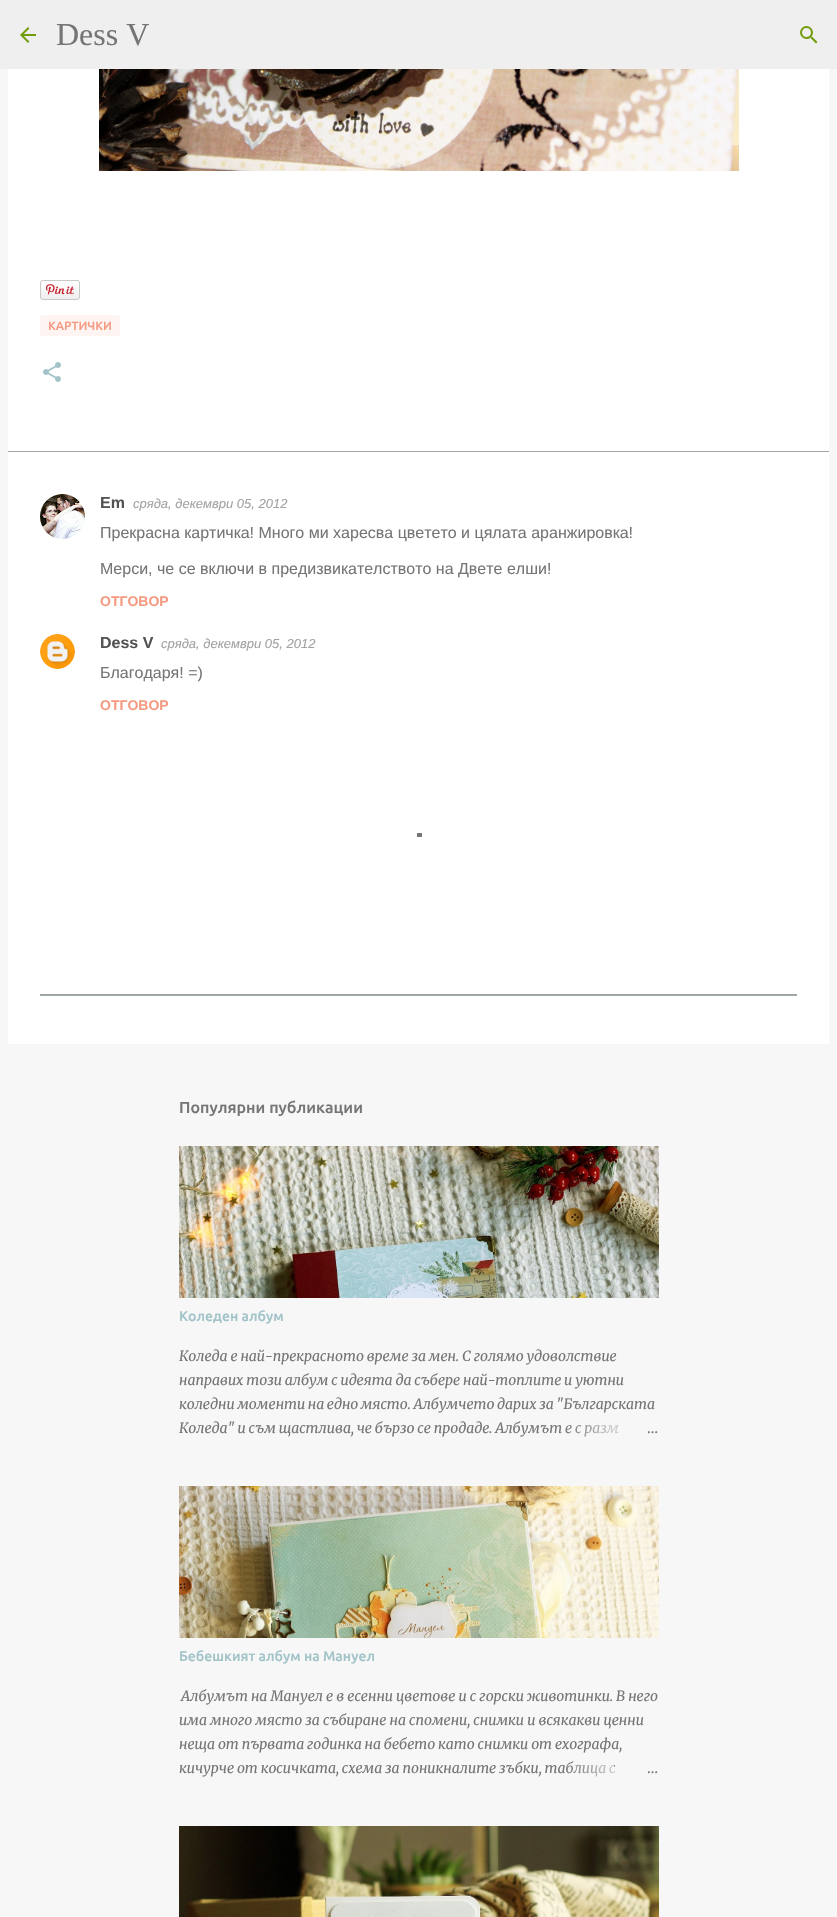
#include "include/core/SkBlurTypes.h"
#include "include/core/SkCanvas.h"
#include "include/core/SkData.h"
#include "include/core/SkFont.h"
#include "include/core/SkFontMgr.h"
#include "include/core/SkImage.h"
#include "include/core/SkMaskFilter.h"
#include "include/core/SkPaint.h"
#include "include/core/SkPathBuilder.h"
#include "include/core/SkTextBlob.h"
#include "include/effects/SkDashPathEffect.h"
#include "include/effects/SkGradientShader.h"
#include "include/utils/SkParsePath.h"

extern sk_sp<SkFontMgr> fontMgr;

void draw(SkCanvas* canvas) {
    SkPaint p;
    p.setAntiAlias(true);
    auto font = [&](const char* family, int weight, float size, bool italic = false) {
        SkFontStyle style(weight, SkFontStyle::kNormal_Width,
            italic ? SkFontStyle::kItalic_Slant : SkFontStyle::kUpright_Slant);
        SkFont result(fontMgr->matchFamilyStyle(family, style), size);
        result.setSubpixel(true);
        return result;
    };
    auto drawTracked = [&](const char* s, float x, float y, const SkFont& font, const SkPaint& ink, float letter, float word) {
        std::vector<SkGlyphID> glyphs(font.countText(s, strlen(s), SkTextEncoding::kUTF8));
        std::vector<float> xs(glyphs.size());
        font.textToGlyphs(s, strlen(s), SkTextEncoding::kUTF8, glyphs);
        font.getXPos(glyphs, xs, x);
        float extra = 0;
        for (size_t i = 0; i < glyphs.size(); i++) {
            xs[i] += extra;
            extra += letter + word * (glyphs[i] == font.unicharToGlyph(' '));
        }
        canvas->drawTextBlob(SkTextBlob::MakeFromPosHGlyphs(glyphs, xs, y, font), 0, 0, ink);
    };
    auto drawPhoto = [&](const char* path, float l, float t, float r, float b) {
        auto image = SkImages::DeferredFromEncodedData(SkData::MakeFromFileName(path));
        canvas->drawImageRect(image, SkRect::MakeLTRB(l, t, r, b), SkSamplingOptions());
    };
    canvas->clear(0xFFF7F7F7);
    p.setColor(0xFFEFEFEF);
    canvas->drawRect(SkRect::MakeLTRB(0, 0, 837, 69), p);
    drawPhoto("media/1.png", 20, 27, 36, 43);
    auto font1 = font("Liberation Serif", 400, 32);
    p.setColor(0xFF757575);
    canvas->drawString("Dess V", 56, 45, font1, p);
    drawPhoto("media/2.png", 800, 26, 818, 44);
    p.setColor(0xFFFFFFFF);
    canvas->drawRect(SkRect::MakeLTRB(8, 69, 829, 451), p);
    drawPhoto("media/3.png", 99, 69, 739, 171);
    drawPhoto("media/4.png", 40, 280, 80, 300);
    p.setColor(0xFFFEF5F3);
    canvas->drawRoundRect(SkRect::MakeLTRB(40, 315, 120, 336), 2, 2, p);
    auto font2 = font("Ubuntu", 500, 12);
    p.setColor(0xFFF59B82);
    canvas->drawString("КАРТИЧКИ", 48, 330, font2, p);
    drawPhoto("media/5.png", 43, 362, 61, 382);
    p.setColor(0xFFFFFFFF);
    canvas->drawRect(SkRect::MakeLTRB(8, 452, 829, 1044), p);
    p.setColor(0xFF9EA6A7);
    canvas->drawRect(SkRect::MakeLTRB(8, 451, 829, 452), p);
    drawPhoto("media/6.png", 40, 494, 85, 539);
    auto font3 = font("Liberation Sans", 700, 16);
    p.setColor(0xFF535353);
    canvas->drawString("Em", 100, 508, font3, p);
    auto font4 = font("Liberation Sans", 400, 13, true);
    p.setColor(0xFFA2A2A2);
    canvas->drawString("сряда, декември 05, 2012", 133, 508, font4, p);
    auto font5 = font("Liberation Sans", 400, 16);
    p.setColor(0xFF757575);
    canvas->drawString("Прекрасна картичка! Много ми харесва цветето и цялата аранжировка!", 100, 538, font5, p);
    canvas->drawString("Мерси, че се включи в предизвикателството на Двете елши!", 100, 574, font5, p);
    auto font6 = font("Liberation Sans", 700, 14);
    p.setColor(0xFFF59B82);
    canvas->drawString("ОТГОВОР", 100, 606, font6, p);
    drawPhoto("media/7.png", 40, 634, 75, 669);
    p.setColor(0xFF535353);
    canvas->drawString("Dess V", 100, 648, font3, p);
    p.setColor(0xFFA2A2A2);
    canvas->drawString("сряда, декември 05, 2012", 161, 648, font4, p);
    p.setColor(0xFF757575);
    canvas->drawString("Благодаря! =)", 100, 678, font5, p);
    p.setColor(0xFFF59B82);
    canvas->drawString("ОТГОВОР", 100, 710, font6, p);
    p.setColor(0xFF9EA6A7);
    canvas->drawRect(SkRect::MakeLTRB(40, 994, 797, 996), p);
    auto font7 = font("Ubuntu", 500, 16);
    p.setColor(0xFF757575);
    canvas->drawString("Популярни публикации", 179, 1113, font7, p);
    drawPhoto("media/8.png", 179, 1146, 659, 1298);
    auto font8 = font("Ubuntu", 500, 14);
    p.setColor(0xFFA2C4C9);
    canvas->drawString("Коледен албум", 179, 1321, font8, p);
    auto font9 = font("Merriweather", 400, 14, true);
    p.setColor(0xFF757575);
    drawTracked("Коледа е най-прекрасното време за мен. С голямо удоволствие", 179, 1361, font9, p, 0, -0.25f);
    drawTracked("направих този албум с идеята да събере най-топлите и уютни", 179, 1385, font9, p, 0, -0.25f);
    drawTracked("коледни моменти на едно място. Албумчето дарих за \"Българската", 179, 1409, font9, p, 0, -0.5f);
    drawTracked("Коледа\" и съм щастлива, че бързо се продаде. Албумът е с разм", 179, 1433, font9, p, 0, -0.25f);
    {
        const SkColor colors[] = {0xFFF7F7F7, 0xFFF7F7F7, 0x00F7F7F7};
        const float stops[] = {0, 0.2f, 1};
        const SkPoint ends[] = {{659, 1428}, {563, 1428}};
        p.setShader(SkGradientShader::MakeLinear(ends, colors, stops, 3, SkTileMode::kClamp));
        p.setAlpha(255);
    }
    canvas->drawRect(SkRect::MakeLTRB(565, 1425, 617, 1437), p);
    auto font10 = font("Merriweather", 300, 14);
    p.setShader(nullptr);
    p.setColor(0xFF757575);
    canvas->drawString("…", 647, 1433, font10, p);
    drawPhoto("media/9.png", 179, 1486, 659, 1638);
    p.setColor(0xFFA2C4C9);
    canvas->drawString("Бебешкият албум на Мануел", 179, 1661, font8, p);
    p.setColor(0xFF757575);
    canvas->drawString("Албумът на Мануел е в есенни цветове и с горски животинки. В него", 181, 1701, font9, p);
    canvas->drawString("има много място за събиране на спомени, снимки и всякакви ценни", 179, 1725, font9, p);
    drawTracked("неща от първата годинка на бебето като снимки от ехографа,", 179, 1749, font9, p, 0, -0.25f);
    drawTracked("кичурче от косичката, схема за поникналите зъбки, таблица с", 179, 1773, font9, p, 0, -0.25f);
    {
        const SkColor colors[] = {0xFFF7F7F7, 0xFFF7F7F7, 0x00F7F7F7};
        const float stops[] = {0, 0.2f, 1};
        const SkPoint ends[] = {{659, 1768}, {563, 1768}};
        p.setShader(SkGradientShader::MakeLinear(ends, colors, stops, 3, SkTileMode::kClamp));
        p.setAlpha(255);
    }
    canvas->drawRect(SkRect::MakeLTRB(565, 1761, 614, 1777), p);
    p.setShader(nullptr);
    p.setColor(0xFF757575);
    canvas->drawString("…", 647, 1773, font10, p);
    drawPhoto("media/10.png", 179, 1826, 659, 1917);
    canvas->drawRect(SkRect::MakeLTRB(417, 833, 422, 837), p);
}
